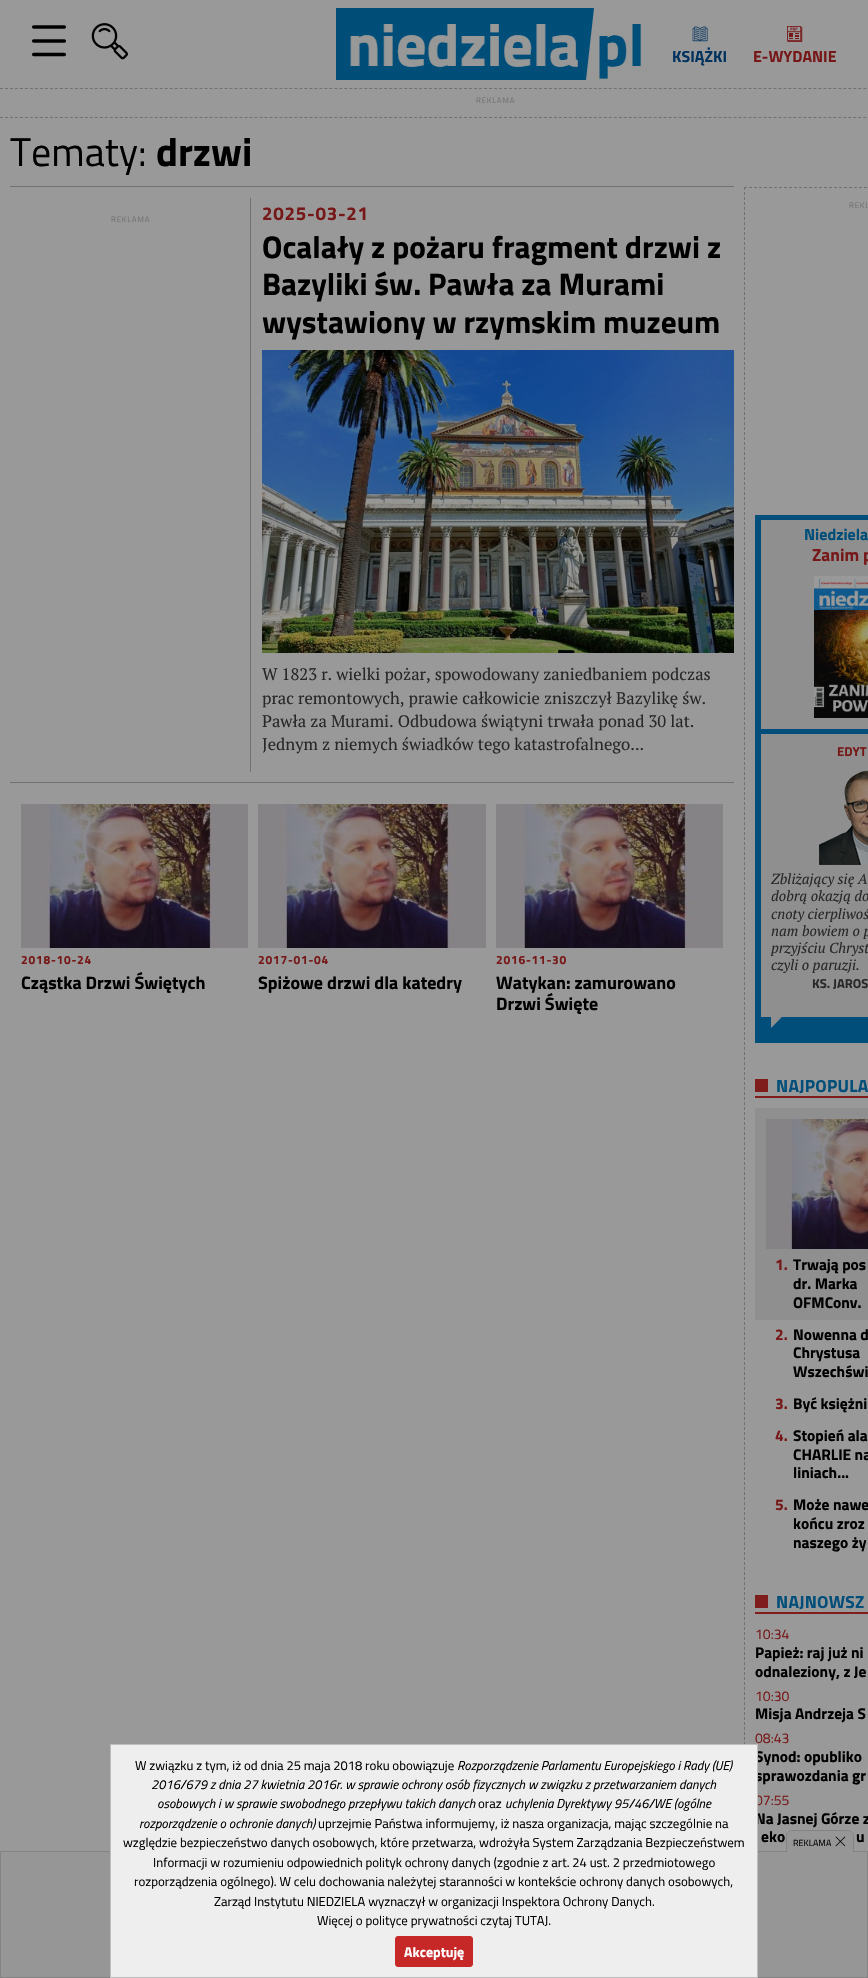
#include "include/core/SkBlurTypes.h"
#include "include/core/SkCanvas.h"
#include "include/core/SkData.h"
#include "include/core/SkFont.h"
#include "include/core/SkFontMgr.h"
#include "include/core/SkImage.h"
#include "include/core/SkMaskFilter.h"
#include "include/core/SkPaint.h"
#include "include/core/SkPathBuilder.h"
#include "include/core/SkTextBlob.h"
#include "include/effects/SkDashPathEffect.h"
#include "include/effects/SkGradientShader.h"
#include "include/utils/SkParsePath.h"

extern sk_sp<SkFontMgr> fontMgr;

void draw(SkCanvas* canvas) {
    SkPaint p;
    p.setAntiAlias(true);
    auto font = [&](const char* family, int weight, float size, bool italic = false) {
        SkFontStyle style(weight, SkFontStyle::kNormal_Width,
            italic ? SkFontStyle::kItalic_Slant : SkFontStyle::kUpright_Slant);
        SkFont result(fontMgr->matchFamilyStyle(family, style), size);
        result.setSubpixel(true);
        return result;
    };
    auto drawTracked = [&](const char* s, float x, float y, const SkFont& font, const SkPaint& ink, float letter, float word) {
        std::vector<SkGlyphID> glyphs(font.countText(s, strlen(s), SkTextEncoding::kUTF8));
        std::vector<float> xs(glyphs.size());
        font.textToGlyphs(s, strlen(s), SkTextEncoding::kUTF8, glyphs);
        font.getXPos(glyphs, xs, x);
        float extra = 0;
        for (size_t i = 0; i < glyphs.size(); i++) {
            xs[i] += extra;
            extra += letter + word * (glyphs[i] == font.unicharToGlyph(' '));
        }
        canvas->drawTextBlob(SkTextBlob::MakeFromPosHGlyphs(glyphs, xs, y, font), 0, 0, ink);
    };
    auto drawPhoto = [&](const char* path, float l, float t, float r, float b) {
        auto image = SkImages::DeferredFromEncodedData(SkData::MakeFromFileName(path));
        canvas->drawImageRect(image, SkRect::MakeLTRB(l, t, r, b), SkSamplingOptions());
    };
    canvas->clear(0xFF999999);
    p.setStyle(SkPaint::kStroke_Style);
    p.setStrokeWidth(1);
    p.setColor(0xFF717171);
    p.setPathEffect(SkDashPathEffect::Make({{3, 1.99f}}, 0));
    canvas->drawPath(SkPathBuilder().moveTo(0, 88.5f).lineTo(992, 88.5f).detach(), p);
    p.setPathEffect(nullptr);
    drawPhoto("media/1.png", 32, 25, 66, 57);
    drawPhoto("media/2.png", 91, 23, 128, 60);
    drawPhoto("media/3.png", 336, 8, 648, 80);
    drawPhoto("media/4.png", 692, 26, 708, 42);
    auto font1 = font("Titillium Web", 700, 16);
    p.setStyle(SkPaint::kFill_Style);
    p.setColor(0xFF01325E);
    canvas->drawString("KSIĄŻKI", 672, 62, font1, p);
    drawPhoto("media/5.png", 787, 26, 803, 42);
    p.setColor(0xFF771818);
    canvas->drawString("E-WYDANIE", 753, 62, font1, p);
    auto font2 = font("Titillium Web", 400, 8);
    p.setColor(0xFF717171);
    drawTracked("REKLAMA", 476, 103, font2, p, 0.75f, 0);
    p.setStyle(SkPaint::kStroke_Style);
    p.setPathEffect(SkDashPathEffect::Make({{3, 1.99f}}, 0));
    canvas->drawPath(SkPathBuilder().moveTo(0, 117.5f).lineTo(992, 117.5f).detach(), p);
    p.setPathEffect(nullptr);
    p.setStyle(SkPaint::kFill_Style);
    canvas->drawRect(SkRect::MakeLTRB(10, 186, 734, 187), p);
    auto font3 = font("Titillium Web", 400, 40);
    p.setColor(0xFF000000);
    canvas->drawString("Tematy:", 10, 166, font3, p);
    auto font4 = font("Titillium Web", 700, 40);
    canvas->drawString("drzwi", 156, 166, font4, p);
    p.setColor(0xFF717171);
    canvas->drawRect(SkRect::MakeLTRB(10, 782, 734, 783), p);
    canvas->drawRect(SkRect::MakeLTRB(250, 198, 251, 772), p);
    drawTracked("REKLAMA", 111, 222, font2, p, 0.75f, 0);
    auto font5 = font("Titillium Web", 700, 18.75f);
    p.setColor(0xFF771818);
    drawTracked("2025-03-21", 262, 220, font5, p, 0.75f, 0);
    auto font6 = font("Titillium Web", 700, 31.25f);
    p.setColor(0xFF000000);
    {
        const struct { const char* s; float x, y; } items[] = {
            {"Ocalały z pożaru fragment drzwi z", 262, 258},
            {"Bazyliki św. Pawła za Murami", 262, 295},
            {"wystawiony w rzymskim muzeum", 262, 333},
        };
        for (auto [s, x, y] : items) {
            canvas->drawString(s, x, y, font6, p);
        }
    }
    drawPhoto("media/6.png", 262, 350, 734, 653);
    auto font7 = font("PT Serif", 400, 16.65f);
    p.setColor(0xFF282828);
    {
        const struct { const char* s; float x, y; } items[] = {
            {"W 1823 r. wielki pożar, spowodowany zaniedbaniem podczas", 262, 680},
            {"prac remontowych, prawie całkowicie zniszczył Bazylikę św.", 262, 704},
            {"Pawła za Murami. Odbudowa świątyni trwała ponad 30 lat.", 262, 727},
            {"Jednym z niemych świadków tego katastrofalnego...", 262, 750},
        };
        for (auto [s, x, y] : items) {
            canvas->drawString(s, x, y, font7, p);
        }
    }
    drawPhoto("media/7.png", 21, 804, 248, 948);
    auto font8 = font("Titillium Web", 700, 12);
    p.setColor(0xFF771818);
    drawTracked("2018-10-24", 21, 964, font8, p, 0.75f, 0);
    auto font9 = font("Titillium Web", 700, 18);
    p.setColor(0xFF000000);
    canvas->drawString("Cząstka Drzwi Świętych", 21, 989, font9, p);
    drawPhoto("media/8.png", 258, 804, 486, 948);
    p.setColor(0xFF771818);
    drawTracked("2017-01-04", 258, 964, font8, p, 0.75f, 0);
    p.setColor(0xFF000000);
    canvas->drawString("Spiżowe drzwi dla katedry", 258, 989, font9, p);
    drawPhoto("media/7.png", 496, 804, 723, 948);
    p.setColor(0xFF771818);
    drawTracked("2016-11-30", 496, 964, font8, p, 0.75f, 0);
    p.setColor(0xFF000000);
    canvas->drawString("Watykan: zamurowano", 496, 989, font9, p);
    canvas->drawString("Drzwi Święte", 496, 1010, font9, p);
    p.setStyle(SkPaint::kStroke_Style);
    p.setColor(0xFF717171);
    p.setPathEffect(SkDashPathEffect::Make({{3, 2}}, 0));
    canvas->drawPath(SkPathBuilder().moveTo(744, 187.5f).lineTo(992, 187.5f).detach(), p);
    p.setPathEffect(nullptr);
    p.setPathEffect(SkDashPathEffect::Make({{3, 2}}, 0));
    canvas->drawPath(SkPathBuilder().moveTo(744.5f, 187).lineTo(744.5f, 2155).detach(), p);
    p.setPathEffect(nullptr);
    p.setStyle(SkPaint::kFill_Style);
    drawTracked("REKL", 849, 208, font2, p, 0.75f, 0);
    p.setColor(0xFF004E79);
    canvas->drawRect(SkRect::MakeLTRB(755, 515, 868, 1043), p);
    p.setColor(0xFF8F8F8F);
    canvas->drawRect(SkRect::MakeLTRB(761, 520, 868, 729), p);
    p.setColor(0xFF004E79);
    canvas->drawString("Niedziela", 804, 540, font1, p);
    auto font10 = font("Titillium Web", 700, 17.5f);
    p.setColor(0xFF771818);
    canvas->drawString("Zanim p", 812, 561, font10, p);
    drawPhoto("media/9.png", 814, 576, 868, 718);
    p.setColor(0xFF8F8F8F);
    canvas->drawRect(SkRect::MakeLTRB(761, 734, 868, 1017), p);
    auto font11 = font("Titillium Web", 700, 13);
    p.setColor(0xFF771818);
    canvas->drawString("EDYT", 837, 756, font11, p);
    drawPhoto("media/10.png", 819, 770, 868, 865);
    auto font12 = font("PT Serif", 400, 14.5f, true);
    p.setColor(0xFF282828);
    {
        const struct { const char* s; float x, y; } items[] = {
            {"Zbliżający się A", 771, 884},
            {"dobrą okazją do", 771, 901},
            {"cnoty cierpliwoś", 771, 919},
            {"nam bowiem o p", 771, 936},
            {"przyjściu Chryst", 771, 953},
            {"czyli o paruzji.", 771, 970},
        };
        for (auto [s, x, y] : items) {
            canvas->drawString(s, x, y, font12, p);
        }
    }
    canvas->drawString("KS. JAROS", 812, 988, font11, p);
    p.setColor(0xFF8F8F8F);
    canvas->drawPath(SkPathBuilder().moveTo(771, 1008).lineTo(791, 1008).lineTo(781, 1018).close().detach(), p);
    canvas->drawPath(SkPathBuilder().moveTo(771, 1028).lineTo(771, 1008).lineTo(781, 1018).close().detach(), p);
    p.setColor(0xFF7F1C1C);
    canvas->drawRect(SkRect::MakeLTRB(755, 1096, 868, 1098), p);
    canvas->drawRect(SkRect::MakeLTRB(755, 1079, 768, 1092), p);
    p.setColor(0xFF004E79);
    drawTracked("NAJPOPULA", 776, 1092, font10, p, 0.25f, 0);
    p.setColor(0xFF8F8F8F);
    canvas->drawRect(SkRect::MakeLTRB(755, 1108, 868, 1320), p);
    drawPhoto("media/11.png", 766, 1119, 868, 1249);
    auto font13 = font("Titillium Web", 700, 15.5f);
    p.setColor(0xFF771818);
    canvas->drawString("1.", 775, 1270, font13, p);
    p.setColor(0xFF000000);
    {
        const struct { const char* s; float x, y; } items[] = {
            {"Trwają pos", 793, 1270},
            {"dr. Marka", 793, 1289},
            {"OFMConv.", 793, 1308},
        };
        for (auto [s, x, y] : items) {
            canvas->drawString(s, x, y, font13, p);
        }
    }
    p.setColor(0xFF771818);
    canvas->drawString("2.", 775, 1340, font13, p);
    p.setColor(0xFF000000);
    {
        const struct { const char* s; float x, y; } items[] = {
            {"Nowenna d", 793, 1340},
            {"Chrystusa", 793, 1358},
            {"Wszechświ", 793, 1377},
        };
        for (auto [s, x, y] : items) {
            canvas->drawString(s, x, y, font13, p);
        }
    }
    p.setColor(0xFF771818);
    canvas->drawString("3.", 775, 1409, font13, p);
    p.setColor(0xFF000000);
    canvas->drawString("Być księżni", 793, 1409, font13, p);
    p.setColor(0xFF771818);
    canvas->drawString("4.", 775, 1441, font13, p);
    p.setColor(0xFF000000);
    {
        const struct { const char* s; float x, y; } items[] = {
            {"Stopień ala", 793, 1441},
            {"CHARLIE na", 793, 1460},
            {"liniach...", 793, 1478},
        };
        for (auto [s, x, y] : items) {
            canvas->drawString(s, x, y, font13, p);
        }
    }
    p.setColor(0xFF771818);
    canvas->drawString("5.", 775, 1510, font13, p);
    p.setColor(0xFF000000);
    {
        const struct { const char* s; float x, y; } items[] = {
            {"Może nawe", 793, 1510},
            {"końcu zroz", 793, 1529},
            {"naszego ży", 793, 1548},
        };
        for (auto [s, x, y] : items) {
            canvas->drawString(s, x, y, font13, p);
        }
    }
    p.setColor(0xFF7F1C1C);
    canvas->drawRect(SkRect::MakeLTRB(755, 1612, 868, 1614), p);
    canvas->drawRect(SkRect::MakeLTRB(755, 1595, 768, 1608), p);
    p.setColor(0xFF004E79);
    drawTracked("NAJNOWSZ", 776, 1608, font10, p, 0.25f, 0);
    auto font14 = font("Titillium Web", 400, 14);
    p.setColor(0xFF771818);
    canvas->drawString("10:34", 755, 1639, font14, p);
    p.setColor(0xFF000000);
    canvas->drawString("Papież: raj już ni", 755, 1658, font13, p);
    canvas->drawString("odnaleziony, z Je", 755, 1677, font13, p);
    p.setColor(0xFF771818);
    canvas->drawString("10:30", 755, 1701, font14, p);
    p.setColor(0xFF000000);
    canvas->drawString("Misja Andrzeja S", 755, 1719, font13, p);
    p.setColor(0xFF771818);
    canvas->drawString("08:43", 755, 1743, font14, p);
    p.setColor(0xFF000000);
    canvas->drawString("Synod: opubliko", 755, 1762, font13, p);
    canvas->drawString("sprawozdania gr", 755, 1781, font13, p);
    p.setColor(0xFF771818);
    canvas->drawString("07:55", 755, 1805, font14, p);
    p.setColor(0xFF000000);
    {
        const struct { const char* s; float x, y; } items[] = {
            {"Na Jasnej Górze z", 755, 1824},
            {"eko", 761, 1842},
            {"u", 856, 1842},
        };
        for (auto [s, x, y] : items) {
            canvas->drawString(s, x, y, font13, p);
        }
    }
    p.setColor(0xFF969696);
    canvas->drawRect(SkRect::MakeLTRB(0.5f, 1851.5f, 867.5f, 1977.5f), p);
    p.setStyle(SkPaint::kStroke_Style);
    p.setColor(0xFF838383);
    canvas->drawRect(SkRect::MakeLTRB(0.5f, 1851.5f, 867.5f, 1977.5f), p);
    p.setStyle(SkPaint::kFill_Style);
    p.setColor(0xFF969696);
    canvas->drawPath(SkPathBuilder().moveTo(792, 1831).lineTo(848, 1831).cubicTo(851, 1831, 853, 1833, 853, 1836).lineTo(853, 1852).lineTo(787, 1852).lineTo(787, 1836).cubicTo(787, 1833, 789, 1831, 792, 1831).close().detach(), p);
    p.setColor(0xFF838383);
    canvas->drawPath(SkPathBuilder(SkPathFillType::kEvenOdd).moveTo(792, 1830).lineTo(848, 1830).cubicTo(851, 1830, 854, 1833, 854, 1836).lineTo(854, 1852).lineTo(786, 1852).lineTo(786, 1836).cubicTo(786, 1833, 789, 1830, 792, 1830).close().moveTo(792, 1831).lineTo(848, 1831).cubicTo(851, 1831, 853, 1833, 853, 1836).lineTo(853, 1852).lineTo(787, 1852).lineTo(787, 1836).cubicTo(787, 1833, 789, 1831, 792, 1831).close().detach(), p);
    auto font15 = font("Titillium Web", 400, 9);
    p.setColor(0xFF000000);
    canvas->drawString("REKLAMA", 793, 1846, font15, p);
    drawPhoto("media/12.png", 835, 1836, 846, 1847);
    p.setColor(0xFFEEEEEE);
    canvas->drawRect(SkRect::MakeLTRB(110.5f, 1744.5f, 757.5f, 1977.5f), p);
    p.setStyle(SkPaint::kStroke_Style);
    p.setColor(0xFFBDBDBD);
    canvas->drawRect(SkRect::MakeLTRB(110.5f, 1744.5f, 757.5f, 1977.5f), p);
    auto font16 = font("Titillium Web", 400, 12.95f);
    p.setStyle(SkPaint::kFill_Style);
    p.setColor(0xFF000000);
    canvas->drawString("W związku z tym, iż od dnia 25 maja 2018 roku obowiązuje", 135, 1770, font16, p);
    auto font17 = font("Titillium Web", 400, 12.95f, true);
    {
        const struct { const char* s; float x, y; } items[] = {
            {"Rozporządzenie Parlamentu Europejskiego i Rady (UE)", 457, 1770},
            {"2016/679 z dnia 27 kwietnia 2016r. w sprawie ochrony osób fizycznych w związku z przetwarzaniem danych", 151, 1789},
            {"osobowych i w sprawie swobodnego przepływu takich danych", 157, 1808},
        };
        for (auto [s, x, y] : items) {
            canvas->drawString(s, x, y, font17, p);
        }
    }
    canvas->drawString("oraz", 478, 1808, font16, p);
    canvas->drawString("uchylenia Dyrektywy 95/46/WE (ogólne", 505, 1808, font17, p);
    canvas->drawString("rozporządzenie o ochronie danych)", 139, 1828, font17, p);
    {
        const struct { const char* s; float x, y; } items[] = {
            {"uprzejmie Państwa informujemy, iż nasza organizacja, mając szczególnie na", 318, 1828},
            {"względzie bezpieczeństwo danych osobowych, które przetwarza, wdrożyła System Zarządzania Bezpieczeństwem", 123, 1847},
            {"Informacji w rozumieniu odpowiednich polityk ochrony danych (zgodnie z art. 24 ust. 2 przedmiotowego", 153, 1867},
            {"rozporządzenia ogólnego). W celu dochowania należytej staranności w kontekście ochrony danych osobowych,", 134, 1886},
            {"Zarząd Instytutu NIEDZIELA wyznaczył w organizacji Inspektora Ochrony Danych.", 214, 1906},
            {"Więcej o polityce prywatności czytaj TUTAJ.", 317, 1925},
        };
        for (auto [s, x, y] : items) {
            canvas->drawString(s, x, y, font16, p);
        }
    }
    p.setColor(0xFFC62828);
    canvas->drawRoundRect(SkRect::MakeLTRB(395.5f, 1936.5f, 472.5f, 1966.5f), 2.5f, 2.5f, p);
    p.setStyle(SkPaint::kStroke_Style);
    canvas->drawRoundRect(SkRect::MakeLTRB(395.5f, 1936.5f, 472.5f, 1966.5f), 2.5f, 2.5f, p);
    auto font18 = font("Titillium Web", 700, 14);
    p.setStyle(SkPaint::kFill_Style);
    p.setColor(0xFFFFFFFF);
    canvas->drawString("Akceptuję", 404, 1957, font18, p);
}
